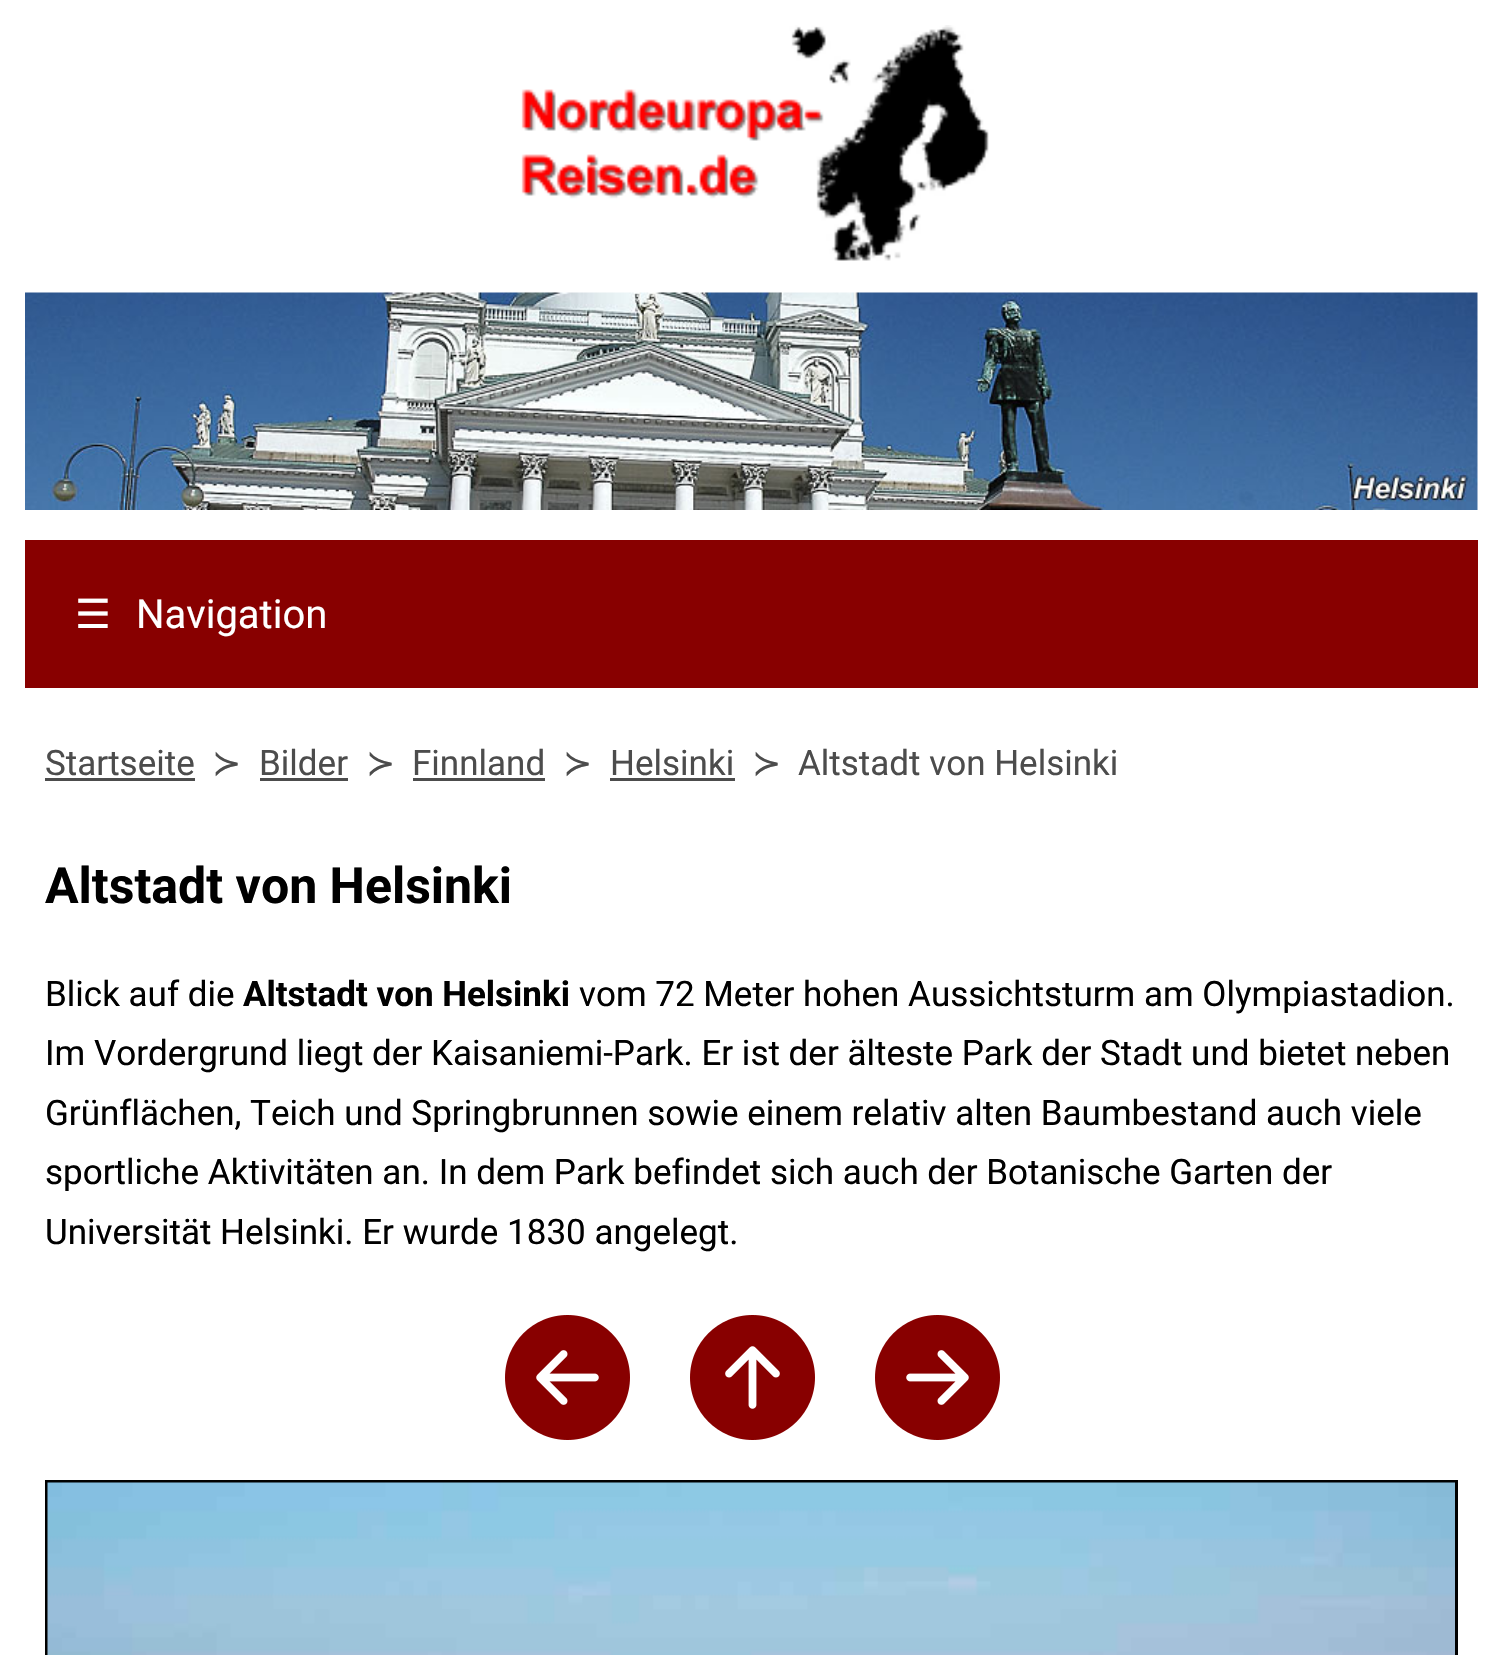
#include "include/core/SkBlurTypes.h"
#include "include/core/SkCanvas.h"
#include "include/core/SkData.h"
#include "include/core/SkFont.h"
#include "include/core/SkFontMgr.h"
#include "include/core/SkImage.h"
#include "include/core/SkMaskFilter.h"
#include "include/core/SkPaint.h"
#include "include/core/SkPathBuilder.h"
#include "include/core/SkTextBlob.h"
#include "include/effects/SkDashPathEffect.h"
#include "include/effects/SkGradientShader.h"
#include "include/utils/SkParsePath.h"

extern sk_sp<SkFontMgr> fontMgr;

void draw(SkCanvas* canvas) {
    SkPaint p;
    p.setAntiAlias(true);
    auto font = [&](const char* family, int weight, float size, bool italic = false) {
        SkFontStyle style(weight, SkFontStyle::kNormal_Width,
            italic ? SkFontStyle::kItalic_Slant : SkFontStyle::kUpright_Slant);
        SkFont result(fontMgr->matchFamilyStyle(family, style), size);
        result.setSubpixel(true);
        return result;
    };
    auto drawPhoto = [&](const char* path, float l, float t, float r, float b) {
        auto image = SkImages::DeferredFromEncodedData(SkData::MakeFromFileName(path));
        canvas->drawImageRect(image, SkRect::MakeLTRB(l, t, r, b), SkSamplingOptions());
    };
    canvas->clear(0xFFFFFFFF);
    drawPhoto("media/1.png", 521, 25, 989, 261);
    drawPhoto("media/2.png", 25, 292, 1478, 510);
    p.setColor(0xFF880000);
    canvas->drawRect(SkRect::MakeLTRB(25, 540, 1478, 688), p);
    auto font1 = font("DejaVu Sans", 400, 40);
    p.setColor(0xFFFFFFFF);
    canvas->drawString("☰", 75, 628, font1, p);
    auto font2 = font("Roboto", 400, 40);
    canvas->drawString("Navigation", 136, 628, font2, p);
    auto font3 = font("Roboto", 400, 35);
    p.setColor(0xFF4C4C4C);
    canvas->drawString("Startseite", 45, 775, font3, p);
    canvas->drawRect(SkRect::MakeLTRB(45, 778, 195, 781), p);
    auto font4 = font("DejaVu Sans", 400, 35);
    canvas->drawString("≻", 212, 775, font4, p);
    canvas->drawString("Bilder", 259, 775, font3, p);
    canvas->drawRect(SkRect::MakeLTRB(260, 778, 348, 781), p);
    canvas->drawString("≻", 366, 775, font4, p);
    canvas->drawString("Finnland", 412, 775, font3, p);
    canvas->drawRect(SkRect::MakeLTRB(413, 778, 545, 781), p);
    canvas->drawString("≻", 563, 775, font4, p);
    canvas->drawString("Helsinki", 610, 775, font3, p);
    canvas->drawRect(SkRect::MakeLTRB(610, 778, 735, 781), p);
    canvas->drawString("≻", 752, 775, font4, p);
    canvas->drawString("Altstadt von Helsinki", 798, 775, font3, p);
    auto font5 = font("Roboto", 700, 50);
    p.setColor(0xFF000000);
    canvas->drawString("Altstadt von Helsinki", 45, 903, font5, p);
    canvas->drawString("Blick auf die", 45, 1006, font3, p);
    auto font6 = font("Roboto", 700, 35);
    canvas->drawString("Altstadt von Helsinki", 243, 1006, font6, p);
    {
        const struct { const char* s; float x, y; } items[] = {
            {"vom 72 Meter hohen Aussichtsturm am Olympiastadion.", 579, 1006},
            {"Im Vordergrund liegt der Kaisaniemi-Park. Er ist der älteste Park der Stadt und bietet neben", 45, 1065},
            {"Grünflächen, Teich und Springbrunnen sowie einem relativ alten Baumbestand auch viele", 45, 1125},
            {"sportliche Aktivitäten an. In dem Park befindet sich auch der Botanische Garten der", 45, 1184},
            {"Universität Helsinki. Er wurde 1830 angelegt.", 45, 1244},
        };
        for (auto [s, x, y] : items) {
            canvas->drawString(s, x, y, font3, p);
        }
    }
    drawPhoto("media/3.png", 505, 1315, 630, 1440);
    drawPhoto("media/4.png", 690, 1315, 815, 1440);
    drawPhoto("media/5.png", 875, 1315, 1000, 1440);
    p.setStyle(SkPaint::kStroke_Style);
    p.setStrokeWidth(3);
    canvas->drawRect(SkRect::MakeLTRB(46.5f, 1481.5f, 1456.5f, 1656.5f), p);
    drawPhoto("media/6.png", 47, 1482, 1455, 1655);
}
